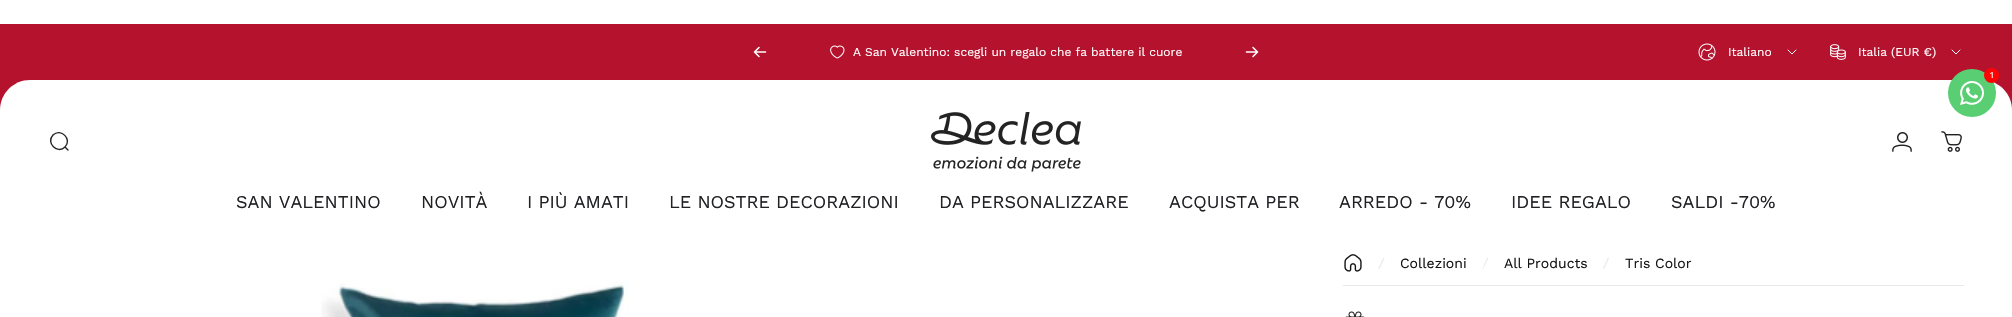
#include "include/core/SkBlurTypes.h"
#include "include/core/SkCanvas.h"
#include "include/core/SkData.h"
#include "include/core/SkFont.h"
#include "include/core/SkFontMgr.h"
#include "include/core/SkImage.h"
#include "include/core/SkMaskFilter.h"
#include "include/core/SkPaint.h"
#include "include/core/SkPathBuilder.h"
#include "include/core/SkTextBlob.h"
#include "include/effects/SkDashPathEffect.h"
#include "include/effects/SkGradientShader.h"
#include "include/utils/SkParsePath.h"

extern sk_sp<SkFontMgr> fontMgr;

void draw(SkCanvas* canvas) {
    SkPaint p;
    p.setAntiAlias(true);
    auto font = [&](const char* family, int weight, float size, bool italic = false) {
        SkFontStyle style(weight, SkFontStyle::kNormal_Width,
            italic ? SkFontStyle::kItalic_Slant : SkFontStyle::kUpright_Slant);
        SkFont result(fontMgr->matchFamilyStyle(family, style), size);
        result.setSubpixel(true);
        return result;
    };
    auto drawPhoto = [&](const char* path, float l, float t, float r, float b) {
        auto image = SkImages::DeferredFromEncodedData(SkData::MakeFromFileName(path));
        canvas->drawImageRect(image, SkRect::MakeLTRB(l, t, r, b), SkSamplingOptions());
    };
    canvas->clear(0xFFFFFFFF);
    p.setColor(0xFFB5122E);
    canvas->drawRect(SkRect::MakeLTRB(0, 24, 2012, 54), p);
    canvas->drawPath(SkPathBuilder().moveTo(30, 24).lineTo(1982, 24).cubicTo(1998.5f, 24, 2012, 37.5f, 2012, 54).lineTo(2012, 110).lineTo(0, 110).lineTo(0, 54).cubicTo(0, 37.5f, 13.5f, 24, 30, 24).close().detach(), p);
    p.setStyle(SkPaint::kStroke_Style);
    p.setStrokeWidth(1.6f);
    p.setStrokeCap(SkPaint::kRound_Cap);
    p.setStrokeJoin(SkPaint::kRound_Join);
    p.setColor(0xFFFFFFFF);
    canvas->drawPath(SkPathBuilder().moveTo(759, 47.5f).lineTo(754.5f, 52).moveTo(754.5f, 52).lineTo(759, 56.5f).moveTo(754.5f, 52).lineTo(765.5f, 52).detach(), p);
    drawPhoto("media/1.png", 830, 45, 845, 59);
    auto font1 = font("Work Sans", 400, 12);
    p.setStyle(SkPaint::kFill_Style);
    canvas->drawString("A San Valentino: scegli un regalo che fa battere il cuore", 853, 56, font1, p);
    p.setStyle(SkPaint::kStroke_Style);
    canvas->drawPath(SkPathBuilder().moveTo(1246.5f, 52).lineTo(1257.5f, 52).moveTo(1257.5f, 52).lineTo(1253, 47.5f).moveTo(1257.5f, 52).lineTo(1253, 56.5f).detach(), p);
    drawPhoto("media/2.png", 1698, 43, 1716, 61);
    p.setStyle(SkPaint::kFill_Style);
    canvas->drawString("Italiano", 1728, 56, font1, p);
    p.setStyle(SkPaint::kStroke_Style);
    p.setStrokeWidth(1);
    canvas->drawPath(SkPathBuilder().moveTo(1788, 50).lineTo(1792, 54).lineTo(1796, 50).detach(), p);
    drawPhoto("media/3.png", 1830, 44, 1846, 60);
    p.setStyle(SkPaint::kFill_Style);
    canvas->drawString("Italia (EUR €)", 1858, 56, font1, p);
    p.setStyle(SkPaint::kStroke_Style);
    canvas->drawPath(SkPathBuilder().moveTo(1952, 50).lineTo(1956, 54).lineTo(1960, 50).detach(), p);
    p.setStyle(SkPaint::kFill_Style);
    canvas->drawPath(SkPathBuilder().moveTo(30, 80).lineTo(1982, 80).cubicTo(1998.5f, 80, 2012, 93.5f, 2012, 110).lineTo(2012, 241).lineTo(0, 241).lineTo(0, 110).cubicTo(0, 93.5f, 13.5f, 80, 30, 80).close().detach(), p);
    p.setColor(0xFF59CE72);
    canvas->drawCircle(1972, 93, 24, p);
    drawPhoto("media/4.png", 1960, 81, 1984, 105);
    p.setColor(0xFFFF0303);
    canvas->drawCircle(1991.5f, 75.5f, 7.5f, p);
    auto font2 = font("Work Sans", 400, 9);
    p.setColor(0xFFFFFFFF);
    canvas->drawString("1", 1990, 78, font2, p);
    p.setStyle(SkPaint::kStroke_Style);
    p.setStrokeWidth(1.4f);
    p.setStrokeJoin(SkPaint::kMiter_Join);
    p.setColor(0xFF202125);
    canvas->drawPath(SkPathBuilder().moveTo(68, 150).lineTo(65, 147).moveTo(65, 147).cubicTo(72.5f, 139.5f, 61, 127.5f, 53, 135).cubicTo(45.5f, 143, 57.5f, 154.5f, 65, 147).close().detach(), p);
    drawPhoto("media/5.png", 931, 112, 1081, 172);
    drawPhoto("media/6.png", 1892, 132, 1912, 152);
    drawPhoto("media/7.png", 1941, 131, 1962, 152);
    auto font3 = font("Work Sans", 400, 18);
    p.setStyle(SkPaint::kFill_Style);
    {
        const struct { const char* s; float x, y; } items[] = {
            {"SAN VALENTINO", 236, 208},
            {"NOVITÀ", 421, 208},
            {"I PIÙ AMATI", 527, 208},
            {"LE NOSTRE DECORAZIONI", 669, 208},
            {"DA PERSONALIZZARE", 939, 208},
            {"ACQUISTA PER", 1169, 208},
            {"ARREDO - 70%", 1339, 208},
            {"IDEE REGALO", 1511, 208},
            {"SALDI -70%", 1671, 208},
        };
        for (auto [s, x, y] : items) {
            canvas->drawString(s, x, y, font3, p);
        }
    }
    p.setColor(0xFFE8E8E8);
    canvas->drawRect(SkRect::MakeLTRB(1343, 285, 1964, 286), p);
    drawPhoto("media/8.png", 1344, 254, 1362, 272);
    canvas->drawPath(SkPathBuilder().moveTo(1383.5f, 257.5f).lineTo(1384.5f, 258).lineTo(1379.5f, 269).lineTo(1378.5f, 268.5f).close().detach(), p);
    auto font4 = font("Work Sans", 400, 14);
    p.setColor(0xFF141414);
    canvas->drawString("Collezioni", 1400, 268, font4, p);
    p.setColor(0xFFE8E8E8);
    canvas->drawPath(SkPathBuilder().moveTo(1487.5f, 257.5f).lineTo(1488.5f, 258).lineTo(1483, 269).lineTo(1482.5f, 268.5f).close().detach(), p);
    p.setColor(0xFF141414);
    canvas->drawString("All Products", 1504, 268, font4, p);
    p.setColor(0xFFE8E8E8);
    canvas->drawPath(SkPathBuilder().moveTo(1608, 257.5f).lineTo(1609, 258).lineTo(1604, 269).lineTo(1603, 268.5f).close().detach(), p);
    p.setColor(0xFF141414);
    canvas->drawString("Tris Color", 1625, 268, font4, p);
    drawPhoto("media/9.png", 1345, 311, 1365, 317);
    drawPhoto("media/10.png", 321, 280, 629, 317);
}
